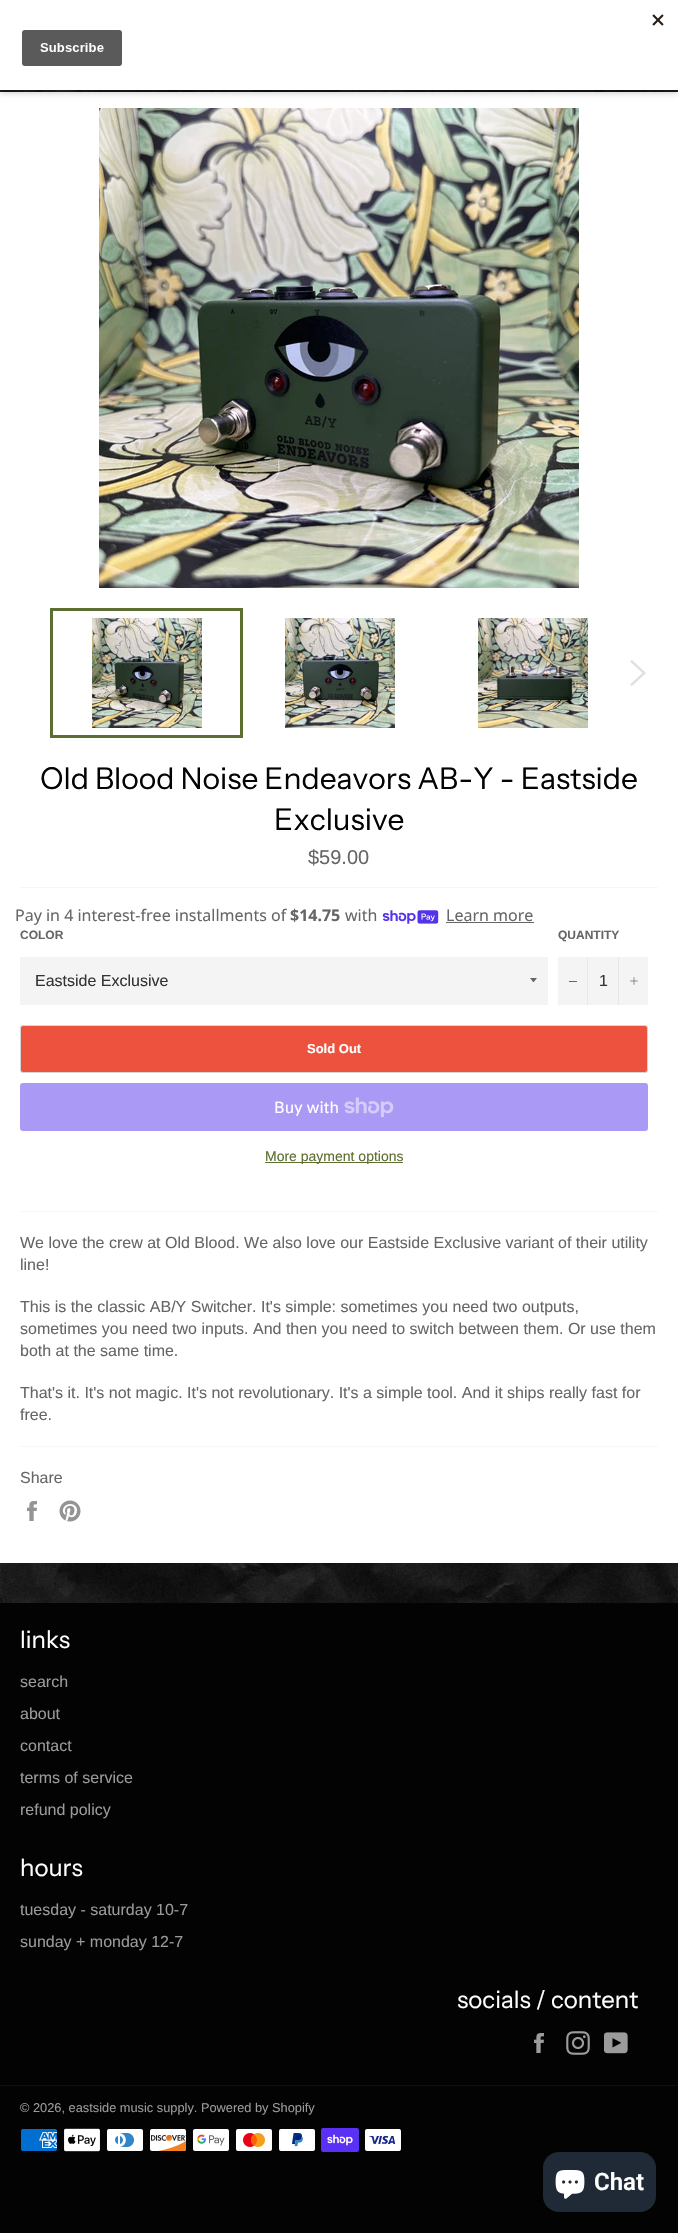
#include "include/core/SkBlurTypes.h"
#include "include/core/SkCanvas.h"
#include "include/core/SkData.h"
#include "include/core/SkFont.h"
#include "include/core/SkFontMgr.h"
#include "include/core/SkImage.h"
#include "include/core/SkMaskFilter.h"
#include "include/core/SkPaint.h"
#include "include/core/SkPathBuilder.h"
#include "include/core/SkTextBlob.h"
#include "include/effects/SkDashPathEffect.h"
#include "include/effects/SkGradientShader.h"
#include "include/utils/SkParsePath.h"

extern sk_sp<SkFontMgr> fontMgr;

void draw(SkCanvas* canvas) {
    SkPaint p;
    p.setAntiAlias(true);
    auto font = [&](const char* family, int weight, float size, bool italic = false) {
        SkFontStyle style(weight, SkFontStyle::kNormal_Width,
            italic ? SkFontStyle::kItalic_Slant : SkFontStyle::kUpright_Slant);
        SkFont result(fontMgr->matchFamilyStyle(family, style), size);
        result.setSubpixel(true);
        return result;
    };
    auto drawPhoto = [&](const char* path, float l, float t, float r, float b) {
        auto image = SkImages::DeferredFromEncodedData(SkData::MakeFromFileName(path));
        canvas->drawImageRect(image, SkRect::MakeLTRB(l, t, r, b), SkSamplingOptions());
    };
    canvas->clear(0xFF030303);
    drawPhoto("media/2.png", 0, 90, 678, 1603);
    p.setColor(0xFFFFFFFF);
    canvas->drawRect(SkRect::MakeLTRB(0, 92, 678, 1563), p);
    p.setColor(0x33000000);
    p.setMaskFilter(SkMaskFilter::MakeBlur(kNormal_SkBlurStyle, 3));
    canvas->drawRect(SkRect::MakeLTRB(0, 3, 678, 93), p);
    p.setMaskFilter(nullptr);
    p.setColor(0xFFFFFFFF);
    canvas->drawRect(SkRect::MakeLTRB(0, 0, 678, 90), p);
    drawPhoto("media/1.png", 22, 14, 664, 66);
    drawPhoto("media/3.png", 99, 108, 579, 588);
    drawPhoto("media/4.png", 92, 618, 202, 728);
    p.setStyle(SkPaint::kStroke_Style);
    p.setStrokeWidth(3);
    p.setColor(0xFF5C6E31);
    canvas->drawRect(SkRect::MakeLTRB(51.5f, 609.5f, 241.5f, 736.5f), p);
    drawPhoto("media/5.png", 285, 618, 395, 728);
    drawPhoto("media/6.png", 478, 618, 588, 728);
    p.setStyle(SkPaint::kFill_Style);
    p.setColor(0xFFE0E0E0);
    canvas->drawPath(SkPathBuilder().moveTo(630, 661.5f).lineTo(632, 660).lineTo(646, 673).lineTo(632, 686).lineTo(630, 684.5f).lineTo(642.5f, 673).close().detach(), p);
    auto font1 = font("Instrument Sans", 400, 30);
    p.setColor(0xFF030303);
    canvas->drawString("Old Blood Noise Endeavors AB-Y - Eastside", 40, 789, font1, p);
    canvas->drawString("Exclusive", 274, 830, font1, p);
    auto font2 = font("Liberation Sans", 400, 20);
    p.setColor(0xFF666666);
    canvas->drawString("$59.00", 308, 864, font2, p);
    p.setColor(0xFFF7F7F7);
    canvas->drawRect(SkRect::MakeLTRB(20, 887, 658, 888), p);
    auto font3 = font("Noto Sans", 400, 16);
    p.setColor(0xFF666666);
    canvas->drawString("Pay in 4 interest-free installments of", 15, 921, font3, p);
    auto font4 = font("Noto Sans", 700, 16);
    canvas->drawString("$14.75", 290, 921, font4, p);
    canvas->drawString("with", 345, 921, font3, p);
    drawPhoto("media/7.png", 382, 910, 439, 924);
    canvas->drawString("Learn more", 446, 921, font3, p);
    canvas->drawRect(SkRect::MakeLTRB(446, 922, 534, 923), p);
    auto font5 = font("Liberation Sans", 700, 12);
    canvas->drawString("COLOR", 20, 939, font5, p);
    p.setColor(0xFFF4F4F4);
    canvas->drawRect(SkRect::MakeLTRB(20, 957, 548, 1005), p);
    p.setColor(0xFF666666);
    canvas->drawPath(SkPathBuilder().moveTo(530, 978).cubicTo(534.5f, 983.5f, 532.5f, 983.5f, 537, 978).close().detach(), p);
    auto font6 = font("Liberation Sans", 400, 16);
    p.setColor(0xFF333333);
    canvas->drawString("Eastside Exclusive", 35, 986, font6, p);
    p.setColor(0xFF666666);
    canvas->drawString("QUANTITY", 558, 939, font5, p);
    {
        const struct { float l, t, r, b; SkColor color; } items[] = {
            {558, 957, 648, 1005, 0xFFF4F4F4},
            {587, 957, 588, 1005, 0xFFE7E7E7},
            {569, 981, 577, 982, 0xFF666666},
        };
        for (auto [l, t, r, b, color] : items) {
            p.setColor(color);
            canvas->drawRect(SkRect::MakeLTRB(l, t, r, b), p);
        }
    }
    p.setColor(0xFF333333);
    canvas->drawString("1", 599, 986, font6, p);
    p.setColor(0xFFE7E7E7);
    canvas->drawRect(SkRect::MakeLTRB(618, 957, 619, 1005), p);
    drawPhoto("media/8.png", 630, 977, 638, 985);
    p.setColor(0xFFEC523E);
    canvas->drawRoundRect(SkRect::MakeLTRB(20.5f, 1025.5f, 647.5f, 1072.5f), 2.5f, 2.5f, p);
    p.setStyle(SkPaint::kStroke_Style);
    p.setStrokeWidth(1);
    p.setColor(0xFFD5D5D5);
    canvas->drawRoundRect(SkRect::MakeLTRB(20.5f, 1025.5f, 647.5f, 1072.5f), 2.5f, 2.5f, p);
    auto font7 = font("Liberation Sans", 700, 13);
    p.setStyle(SkPaint::kFill_Style);
    p.setColor(0xFFFFFFFF);
    canvas->drawString("Sold Out", 307, 1053, font7, p);
    p.setColor(0xFFAA99F5);
    canvas->drawRoundRect(SkRect::MakeLTRB(20, 1083, 648, 1131), 3, 3, p);
    auto font8 = font("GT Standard", 400, 16);
    p.setColor(0xFFFFFFFF);
    canvas->drawString("Buy with", 274, 1113, font8, p);
    drawPhoto("media/9.png", 344, 1097, 394, 1117);
    p.setColor(0xFF5C6E31);
    canvas->drawRect(SkRect::MakeLTRB(265, 1162, 403, 1163), p);
    auto font9 = font("Liberation Sans", 400, 14);
    canvas->drawString("More payment options", 265, 1161, font9, p);
    p.setColor(0xFFF7F7F7);
    canvas->drawRect(SkRect::MakeLTRB(20, 1211, 658, 1212), p);
    p.setColor(0xFF666666);
    {
        const struct { const char* s; float x, y; } items[] = {
            {"We love the crew at Old Blood. We also love our Eastside Exclusive variant of their utility", 20, 1248},
            {"line!", 20, 1270},
            {"This is the classic AB/Y Switcher. It's simple: sometimes you need two outputs,", 20, 1312},
            {"sometimes you need two inputs. And then you need to switch between them. Or use them", 20, 1334},
            {"both at the same time.", 20, 1356},
            {"That's it. It's not magic. It's not revolutionary. It's a simple tool. And it ships really fast for", 20, 1398},
            {"free.", 20, 1420},
        };
        for (auto [s, x, y] : items) {
            canvas->drawString(s, x, y, font6, p);
        }
    }
    p.setColor(0xFFF7F7F7);
    canvas->drawRect(SkRect::MakeLTRB(20, 1446, 658, 1447), p);
    p.setColor(0xFF666666);
    canvas->drawString("Share", 20, 1483, font6, p);
    drawPhoto("media/10.png", 27, 1501, 37, 1521);
    drawPhoto("media/11.png", 59, 1500, 81, 1522);
    auto font10 = font("Instrument Sans", 400, 24);
    p.setColor(0xFFFFFFFF);
    canvas->drawString("links", 20, 1648, font10, p);
    p.setColor(0xFF9A9A9A);
    {
        const struct { const char* s; float x, y; } items[] = {
            {"search", 20, 1687},
            {"about", 20, 1719},
            {"contact", 20, 1751},
            {"terms of service", 20, 1783},
            {"refund policy", 20, 1815},
        };
        for (auto [s, x, y] : items) {
            canvas->drawString(s, x, y, font6, p);
        }
    }
    p.setColor(0xFFFFFFFF);
    canvas->drawString("hours", 20, 1876, font10, p);
    p.setColor(0xFF9A9A9A);
    canvas->drawString("tuesday - saturday 10-7", 20, 1915, font6, p);
    canvas->drawString("sunday + monday 12-7", 20, 1947, font6, p);
    p.setColor(0xFFFFFFFF);
    canvas->drawString("socials / content", 457, 2008, font10, p);
    drawPhoto("media/12.png", 534, 2033, 544, 2053);
    drawPhoto("media/13.png", 566, 2031, 590, 2055);
    drawPhoto("media/14.png", 604, 2032, 628, 2054);
    p.setColor(0xFF101010);
    canvas->drawRect(SkRect::MakeLTRB(0, 2085, 678, 2086), p);
    auto font11 = font("Liberation Sans", 400, 12.8f);
    p.setColor(0xFF9A9A9A);
    canvas->drawString("© 2026, eastside music supply. Powered by Shopify", 20, 2112, font11, p);
    drawPhoto("media/15.png", 21, 2129, 57, 2151);
    drawPhoto("media/16.png", 64, 2128, 100, 2152);
    drawPhoto("media/17.png", 107, 2129, 143, 2151);
    drawPhoto("media/18.png", 150, 2129, 187, 2151);
    drawPhoto("media/19.png", 193, 2129, 229, 2151);
    drawPhoto("media/20.png", 236, 2129, 272, 2151);
    drawPhoto("media/21.png", 279, 2129, 315, 2151);
    drawPhoto("media/22.png", 321, 2128, 359, 2152);
    drawPhoto("media/23.png", 365, 2129, 401, 2151);
    p.setColor(0xFF202A36);
    canvas->drawRoundRect(SkRect::MakeLTRB(543, 2152, 656, 2212), 16, 16, p);
    drawPhoto("media/24.png", 555, 2170, 585, 2199);
    auto font12 = font("Roboto", 600, 24);
    p.setColor(0xFFFFFFFF);
    canvas->drawString("Chat", 594, 2190, font12, p);
}
